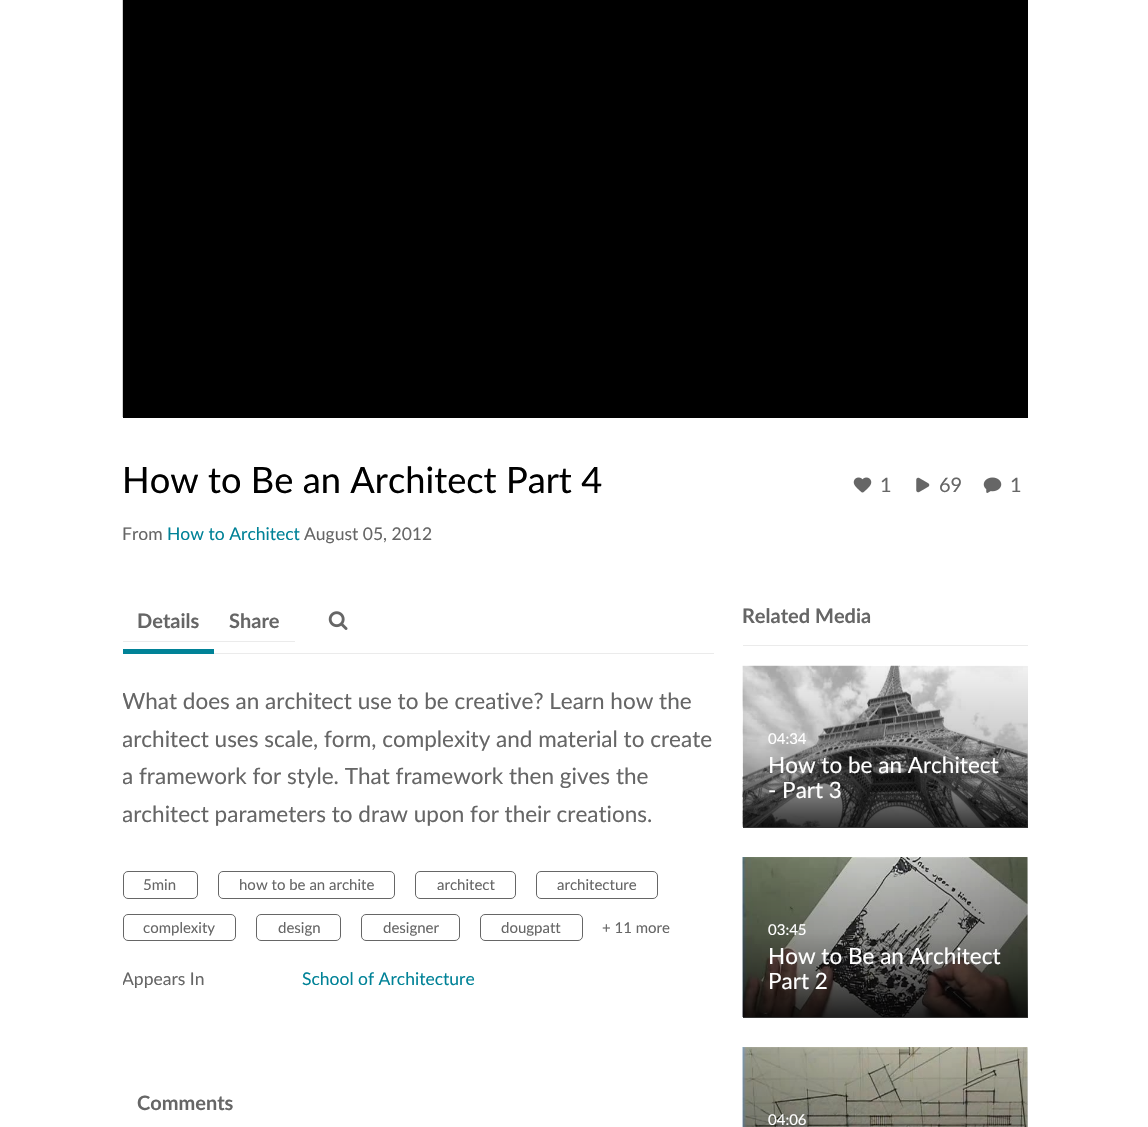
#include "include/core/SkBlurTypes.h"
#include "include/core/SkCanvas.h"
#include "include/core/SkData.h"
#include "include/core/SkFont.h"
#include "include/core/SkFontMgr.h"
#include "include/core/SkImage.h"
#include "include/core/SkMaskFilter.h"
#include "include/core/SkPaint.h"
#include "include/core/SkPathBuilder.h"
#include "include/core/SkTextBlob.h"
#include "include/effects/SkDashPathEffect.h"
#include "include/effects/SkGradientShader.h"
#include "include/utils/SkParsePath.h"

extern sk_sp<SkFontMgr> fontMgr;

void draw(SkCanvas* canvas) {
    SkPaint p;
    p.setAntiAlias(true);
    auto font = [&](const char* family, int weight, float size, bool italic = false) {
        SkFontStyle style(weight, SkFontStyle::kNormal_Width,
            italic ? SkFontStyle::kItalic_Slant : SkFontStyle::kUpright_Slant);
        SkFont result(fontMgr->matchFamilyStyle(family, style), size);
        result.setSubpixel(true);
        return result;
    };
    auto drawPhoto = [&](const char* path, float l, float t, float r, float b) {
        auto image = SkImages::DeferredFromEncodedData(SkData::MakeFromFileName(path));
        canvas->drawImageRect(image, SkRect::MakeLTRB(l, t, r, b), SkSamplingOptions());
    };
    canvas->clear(0xFFFFFFFF);
    p.setColor(0xFF000000);
    canvas->drawRect(SkRect::MakeLTRB(123, 0, 1028, 418), p);
    p.setColor(0xFFD1D1D1);
    canvas->drawRect(SkRect::MakeLTRB(122, 0, 123, 417), p);
    auto font1 = font("Lato", 400, 36.25f);
    p.setColor(0xFF000000);
    canvas->drawString("How to Be an Architect Part 4", 122, 493, font1, p);
    auto font2 = font("Lato", 400, 17.5f);
    p.setColor(0xFF666666);
    canvas->drawString("From", 122, 540, font2, p);
    p.setColor(0xFF008297);
    canvas->drawString("How to Architect", 167, 540, font2, p);
    p.setColor(0xFF666666);
    canvas->drawString("August 05, 2012", 304, 540, font2, p);
    drawPhoto("media/1.png", 853, 477, 872, 493);
    auto font3 = font("Lato", 400, 20);
    canvas->drawString("1", 880, 492, font3, p);
    drawPhoto("media/2.png", 916, 477, 930, 493);
    canvas->drawString("69", 939, 492, font3, p);
    drawPhoto("media/3.png", 983, 477, 1002, 493);
    canvas->drawString("1", 1010, 492, font3, p);
    {
        const struct { float l, t, r, b; SkColor color; } items[] = {
            {214, 653, 714, 654, 0xFFEBEBEB},
            {123, 641, 295, 642, 0xFFEBEBEB},
            {123, 649, 214, 654, 0xFF008297},
        };
        for (auto [l, t, r, b, color] : items) {
            p.setColor(color);
            canvas->drawRect(SkRect::MakeLTRB(l, t, r, b), p);
        }
    }
    auto font4 = font("Lato", 700, 20);
    p.setColor(0xFF666666);
    canvas->drawString("Details", 137, 628, font4, p);
    canvas->drawString("Share", 229, 628, font4, p);
    drawPhoto("media/4.png", 328, 611, 348, 630);
    canvas->save();
    canvas->clipRect(SkRect::MakeLTRB(123, 681, 714, 1046));
    auto font5 = font("Lato", 400, 22.5f);
    {
        const struct { const char* s; float x, y; } items[] = {
            {"What does an architect use to be creative? Learn how the", 122, 709},
            {"architect uses scale, form, complexity and material to create", 122, 747},
            {"a framework for style. That framework then gives the", 122, 784},
            {"architect parameters to draw upon for their creations.", 122, 822},
        };
        for (auto [s, x, y] : items) {
            canvas->drawString(s, x, y, font5, p);
        }
    }
    canvas->restore();
    p.setStyle(SkPaint::kStroke_Style);
    p.setStrokeWidth(1);
    canvas->drawRoundRect(SkRect::MakeLTRB(123.5f, 871.5f, 197.5f, 898.5f), 4.5f, 4.5f, p);
    auto font6 = font("Lato", 400, 15);
    p.setStyle(SkPaint::kFill_Style);
    canvas->drawString("5min", 143, 890, font6, p);
    p.setStyle(SkPaint::kStroke_Style);
    canvas->drawRoundRect(SkRect::MakeLTRB(218.5f, 871.5f, 394.5f, 898.5f), 4.5f, 4.5f, p);
    p.setStyle(SkPaint::kFill_Style);
    canvas->drawString("how to be an archite", 239, 890, font6, p);
    p.setStyle(SkPaint::kStroke_Style);
    canvas->drawRoundRect(SkRect::MakeLTRB(415.5f, 871.5f, 515.5f, 898.5f), 4.5f, 4.5f, p);
    p.setStyle(SkPaint::kFill_Style);
    canvas->drawString("architect", 437, 890, font6, p);
    p.setStyle(SkPaint::kStroke_Style);
    canvas->drawRoundRect(SkRect::MakeLTRB(536.5f, 871.5f, 657.5f, 898.5f), 4.5f, 4.5f, p);
    p.setStyle(SkPaint::kFill_Style);
    canvas->drawString("architecture", 557, 890, font6, p);
    p.setStyle(SkPaint::kStroke_Style);
    canvas->drawRoundRect(SkRect::MakeLTRB(123.5f, 914.5f, 235.5f, 940.5f), 4.5f, 4.5f, p);
    p.setStyle(SkPaint::kFill_Style);
    canvas->drawString("complexity", 143, 933, font6, p);
    p.setStyle(SkPaint::kStroke_Style);
    canvas->drawRoundRect(SkRect::MakeLTRB(256.5f, 914.5f, 340.5f, 940.5f), 4.5f, 4.5f, p);
    p.setStyle(SkPaint::kFill_Style);
    canvas->drawString("design", 278, 933, font6, p);
    p.setStyle(SkPaint::kStroke_Style);
    canvas->drawRoundRect(SkRect::MakeLTRB(361.5f, 914.5f, 459.5f, 940.5f), 4.5f, 4.5f, p);
    p.setStyle(SkPaint::kFill_Style);
    canvas->drawString("designer", 383, 933, font6, p);
    p.setStyle(SkPaint::kStroke_Style);
    canvas->drawRoundRect(SkRect::MakeLTRB(480.5f, 914.5f, 582.5f, 940.5f), 4.5f, 4.5f, p);
    p.setStyle(SkPaint::kFill_Style);
    canvas->drawString("dougpatt", 501, 933, font6, p);
    canvas->drawString("+ 11 more", 602, 933, font6, p);
    canvas->save();
    canvas->clipRect(SkRect::MakeLTRB(123, 966, 273, 991));
    canvas->drawString("Appears In", 122, 985, font2, p);
    canvas->restore();
    p.setColor(0xFF008297);
    canvas->drawString("School of Architecture", 302, 985, font2, p);
    p.setColor(0xFF666666);
    canvas->drawString("Comments", 137, 1110, font4, p);
    p.setColor(0xFFEBEBEB);
    canvas->drawRect(SkRect::MakeLTRB(743, 645, 1028, 646), p);
    p.setColor(0xFF666666);
    canvas->drawString("Related Media", 742, 623, font4, p);
    drawPhoto("media/5.png", 742, 665, 1028, 827);
    {
        const SkColor colors[] = {0xCC000000, 0x66000000, 0x33000000, 0x26000000, 0x0D000000};
        const float stops[] = {0, 0.3f, 0.53f, 0.71f, 1};
        const SkPoint ends[] = {{885, 828}, {885, 666}};
        p.setShader(SkGradientShader::MakeLinear(ends, colors, stops, 5, SkTileMode::kClamp));
        p.setAlpha(255);
    }
    canvas->drawRect(SkRect::MakeLTRB(743, 666, 1028, 828), p);
    p.setShader(nullptr);
    p.setColor(0xFFFFFFFF);
    canvas->drawString("04:34", 768, 744, font6, p);
    canvas->drawString("How to be an Architect", 768, 773, font5, p);
    canvas->drawString("- Part 3", 768, 798, font5, p);
    drawPhoto("media/6.png", 742, 857, 1028, 1017);
    {
        const SkColor colors[] = {0xCC000000, 0x66000000, 0x33000000, 0x26000000, 0x0D000000};
        const float stops[] = {0, 0.3f, 0.53f, 0.71f, 1};
        const SkPoint ends[] = {{885, 1018}, {885, 858}};
        p.setShader(SkGradientShader::MakeLinear(ends, colors, stops, 5, SkTileMode::kClamp));
        p.setAlpha(255);
    }
    canvas->drawRect(SkRect::MakeLTRB(743, 858, 1028, 1018), p);
    p.setShader(nullptr);
    p.setColor(0xFFFFFFFF);
    canvas->drawString("03:45", 768, 935, font6, p);
    canvas->drawString("How to Be an Architect", 768, 964, font5, p);
    canvas->drawString("Part 2", 768, 989, font5, p);
    drawPhoto("media/7.png", 742, 1047, 1028, 1127);
    {
        const SkColor colors[] = {0xCC000000, 0x66000000, 0x33000000, 0x26000000, 0x0D000000};
        const float stops[] = {0, 0.3f, 0.53f, 0.71f, 1};
        const SkPoint ends[] = {{885, 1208}, {885, 1048}};
        p.setShader(SkGradientShader::MakeLinear(ends, colors, stops, 5, SkTileMode::kClamp));
        p.setAlpha(255);
    }
    canvas->drawRect(SkRect::MakeLTRB(743, 1048, 1028, 1127), p);
    p.setShader(nullptr);
    p.setColor(0xFFFFFFFF);
    canvas->drawString("04:06", 768, 1125, font6, p);
}
